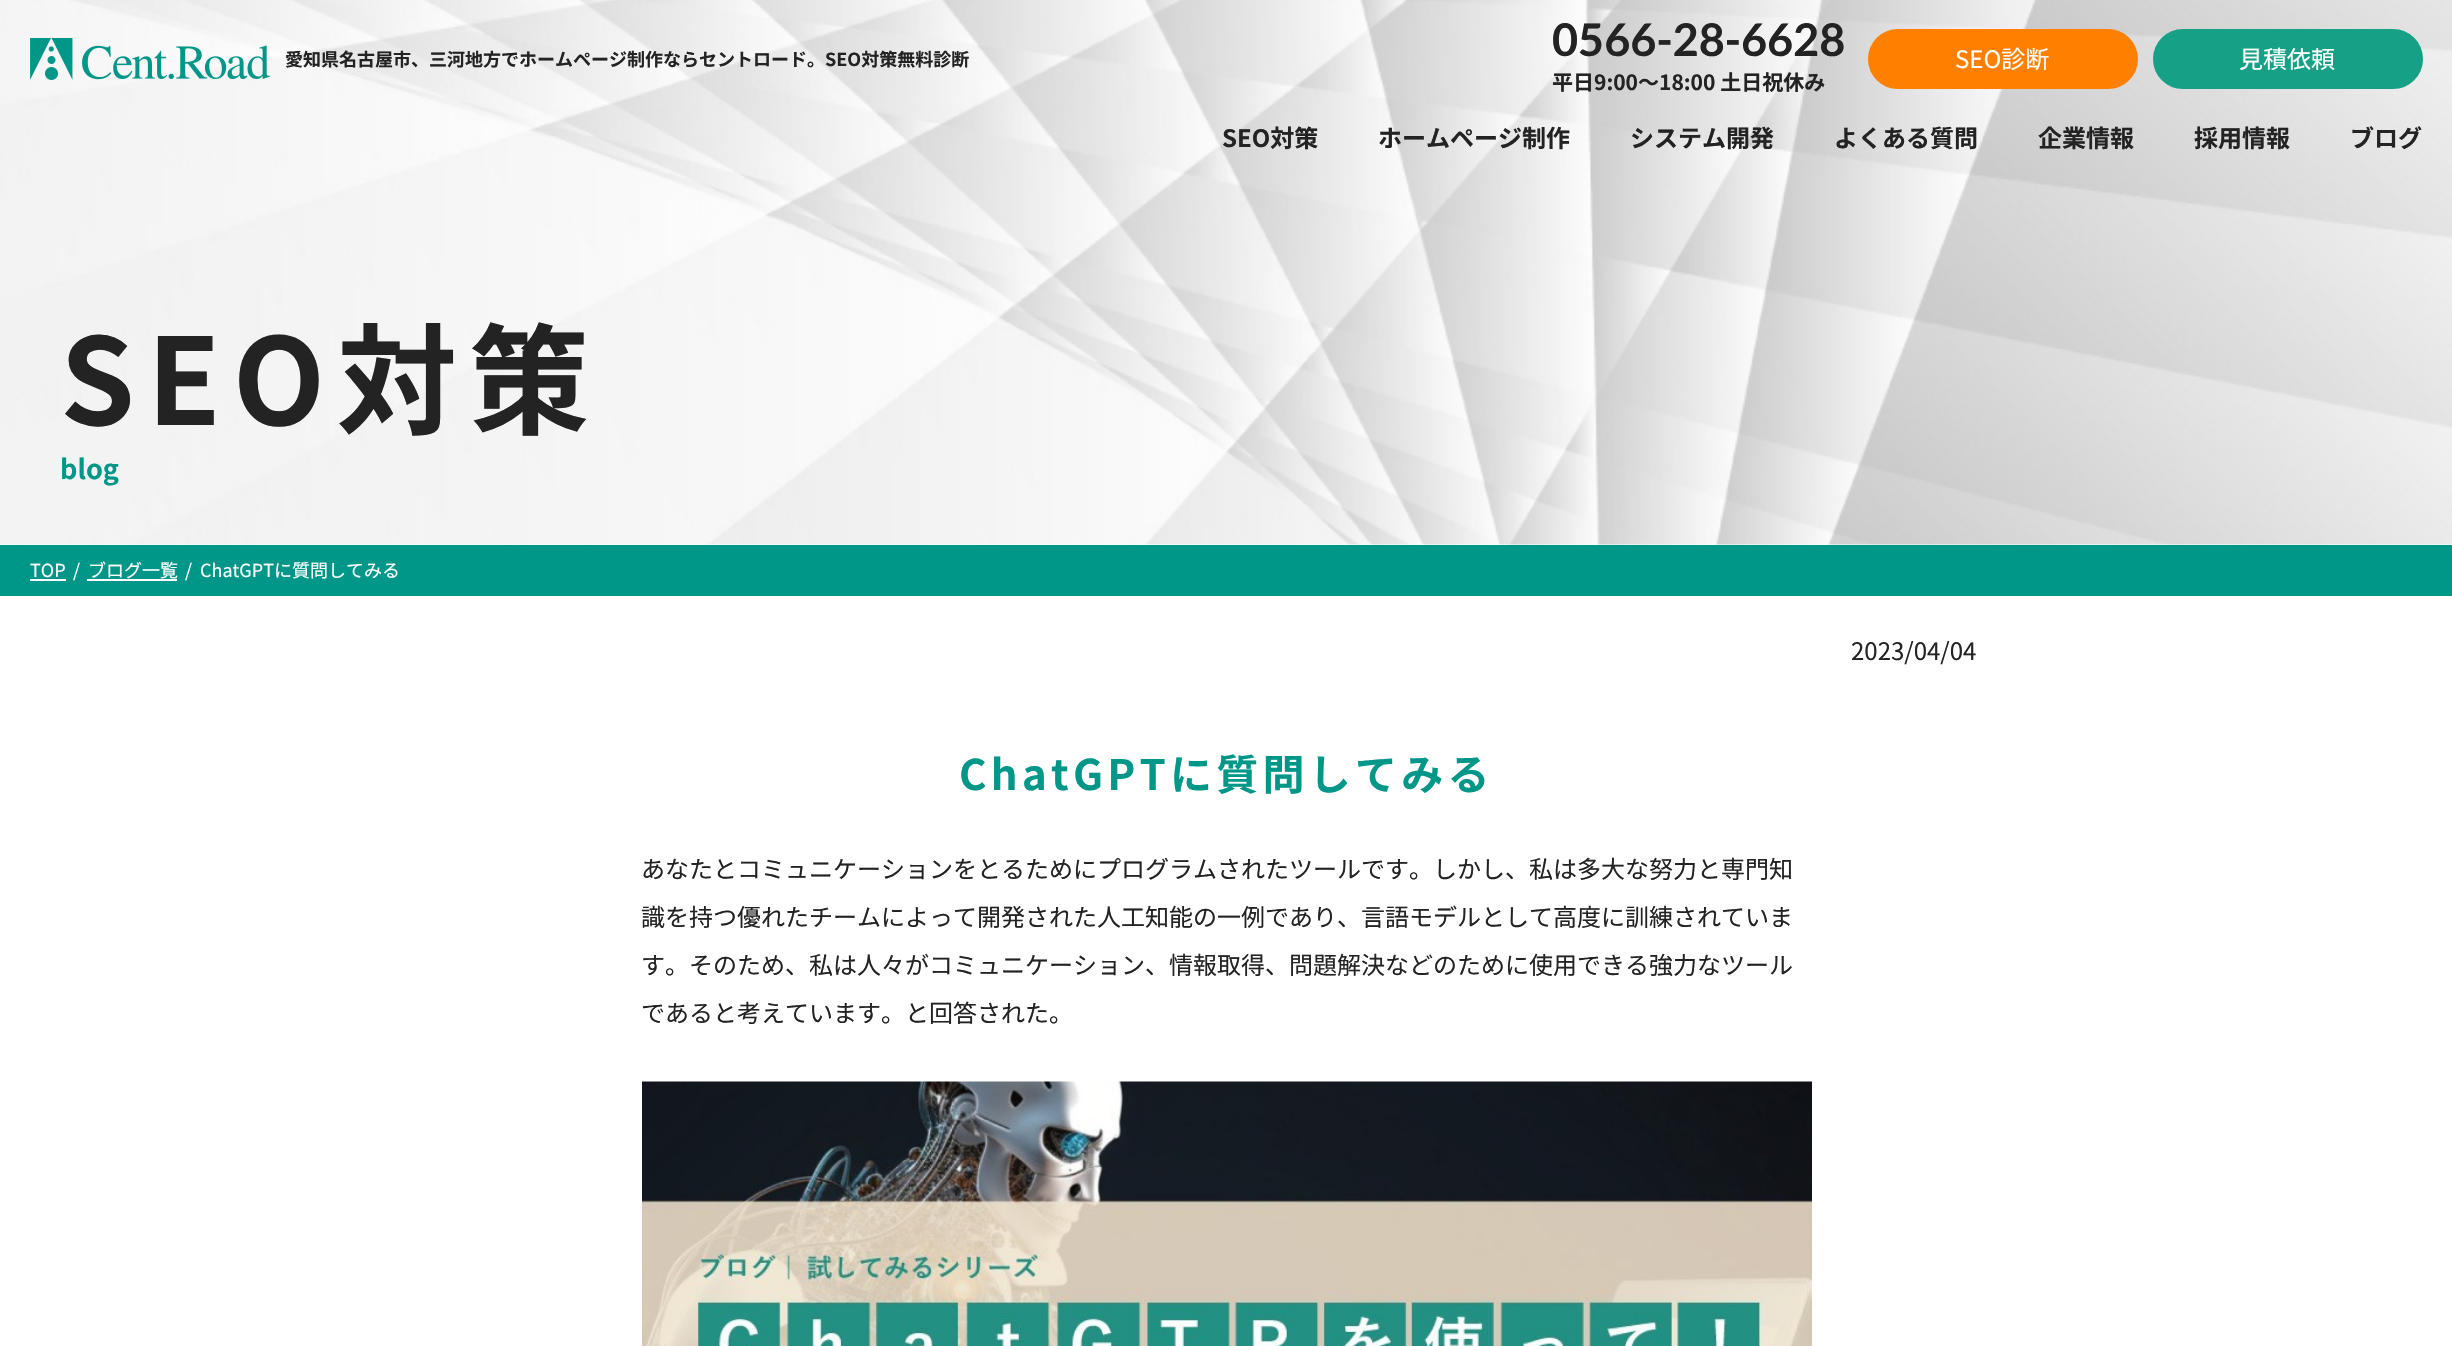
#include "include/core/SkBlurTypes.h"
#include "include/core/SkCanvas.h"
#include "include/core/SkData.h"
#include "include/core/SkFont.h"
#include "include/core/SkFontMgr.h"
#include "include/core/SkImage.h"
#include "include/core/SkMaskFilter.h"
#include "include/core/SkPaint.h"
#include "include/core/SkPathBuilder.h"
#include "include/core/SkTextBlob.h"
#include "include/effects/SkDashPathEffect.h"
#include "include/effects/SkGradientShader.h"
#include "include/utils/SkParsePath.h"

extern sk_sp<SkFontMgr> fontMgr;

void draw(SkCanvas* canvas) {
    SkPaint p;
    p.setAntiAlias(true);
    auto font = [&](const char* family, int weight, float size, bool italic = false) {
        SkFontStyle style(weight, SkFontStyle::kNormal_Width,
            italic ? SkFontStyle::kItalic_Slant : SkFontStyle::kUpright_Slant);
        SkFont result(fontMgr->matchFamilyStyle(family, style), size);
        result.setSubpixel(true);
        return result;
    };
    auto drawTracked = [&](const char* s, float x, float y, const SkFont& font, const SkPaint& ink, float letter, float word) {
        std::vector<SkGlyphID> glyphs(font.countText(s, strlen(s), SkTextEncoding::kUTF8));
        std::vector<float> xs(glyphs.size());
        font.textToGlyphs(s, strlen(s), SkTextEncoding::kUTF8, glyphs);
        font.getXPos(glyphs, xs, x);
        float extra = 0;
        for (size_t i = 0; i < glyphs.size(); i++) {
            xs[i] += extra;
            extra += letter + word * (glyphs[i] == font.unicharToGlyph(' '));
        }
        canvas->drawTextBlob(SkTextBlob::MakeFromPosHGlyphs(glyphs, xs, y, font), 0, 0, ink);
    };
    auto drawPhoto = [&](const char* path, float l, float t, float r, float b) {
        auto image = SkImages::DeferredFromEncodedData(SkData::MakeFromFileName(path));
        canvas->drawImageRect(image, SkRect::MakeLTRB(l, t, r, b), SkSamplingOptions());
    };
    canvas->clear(0xFFFFFFFF);
    drawPhoto("media/2.png", 0, 0, 2452, 545);
    drawPhoto("media/1.png", 30, 38, 270, 80);
    auto font1 = font("Noto Sans JP", 700, 18);
    p.setColor(0xFF232323);
    canvas->drawString("愛知県名古屋市、三河地方でホームページ制作ならセントロード。SEO対策無料診断", 285, 66, font1, p);
    auto font2 = font("Lato", 700, 45);
    canvas->drawString("0566-28-6628", 1552, 56, font2, p);
    auto font3 = font("Noto Sans JP", 700, 21);
    canvas->drawString("平日9:00〜18:00 土日祝休み", 1552, 90, font3, p);
    p.setColor(0xFFFF7F00);
    canvas->drawRoundRect(SkRect::MakeLTRB(1869, 30, 2137, 88), 29, 29, p);
    p.setStyle(SkPaint::kStroke_Style);
    p.setStrokeWidth(2);
    canvas->drawRoundRect(SkRect::MakeLTRB(1869, 30, 2137, 88), 29, 29, p);
    auto font4 = font("Noto Sans JP", 400, 24);
    p.setStyle(SkPaint::kFill_Style);
    p.setColor(0xFFFFFFFF);
    canvas->drawString("SEO診断", 1955, 68, font4, p);
    p.setColor(0xFF16A085);
    canvas->drawRoundRect(SkRect::MakeLTRB(2154, 30, 2422, 88), 29, 29, p);
    p.setStyle(SkPaint::kStroke_Style);
    canvas->drawRoundRect(SkRect::MakeLTRB(2154, 30, 2422, 88), 29, 29, p);
    p.setStyle(SkPaint::kFill_Style);
    p.setColor(0xFFFFFFFF);
    canvas->drawString("見積依頼", 2239, 68, font4, p);
    auto font5 = font("Noto Sans JP", 700, 24);
    p.setColor(0xFF232323);
    {
        const struct { const char* s; float x, y; } items[] = {
            {"SEO対策", 1222, 147},
            {"ホームページ制作", 1378, 147},
            {"システム開発", 1630, 147},
            {"よくある質問", 1834, 147},
            {"企業情報", 2038, 147},
            {"採用情報", 2194, 147},
            {"ブログ", 2350, 147},
        };
        for (auto [s, x, y] : items) {
            canvas->drawString(s, x, y, font5, p);
        }
    }
    auto font6 = font("Noto Sans JP", 700, 120);
    drawTracked("SEO対策", 60, 425, font6, p, 12, 0);
    auto font7 = font("Noto Sans JP", 700, 27);
    p.setColor(0xFF009688);
    canvas->drawString("blog", 60, 479, font7, p);
    canvas->drawRect(SkRect::MakeLTRB(0, 545, 2452, 596), p);
    auto font8 = font("Noto Sans JP", 400, 18);
    p.setColor(0xFFFFFFFF);
    canvas->drawString("TOP", 30, 577, font8, p);
    canvas->drawRect(SkRect::MakeLTRB(30, 579, 66, 581), p);
    canvas->drawString("/", 73, 577, font8, p);
    canvas->drawString("ブログ一覧", 88, 577, font8, p);
    canvas->drawRect(SkRect::MakeLTRB(87, 579, 177, 581), p);
    canvas->drawString("/", 185, 577, font8, p);
    canvas->drawString("ChatGPTに質問してみる", 200, 577, font8, p);
    p.setColor(0xFF232323);
    canvas->drawString("2023/04/04", 1851, 660, font4, p);
    auto font9 = font("Noto Sans JP", 700, 42);
    p.setColor(0xFF009688);
    drawTracked("ChatGPTに質問してみる", 959, 790, font9, p, 4.25f, 0);
    p.setColor(0xFF232323);
    {
        const struct { const char* s; float x, y; } items[] = {
            {"あなたとコミュニケーションをとるためにプログラムされたツールです。しかし、私は多大な努力と専門知", 641, 878},
            {"識を持つ優れたチームによって開発された人工知能の一例であり、言語モデルとして高度に訓練されていま", 641, 926},
            {"す。そのため、私は人々がコミュニケーション、情報取得、問題解決などのために使用できる強力なツール", 641, 974},
            {"であると考えています。と回答された。", 641, 1022},
        };
        for (auto [s, x, y] : items) {
            canvas->drawString(s, x, y, font4, p);
        }
    }
    drawPhoto("media/3.png", 642, 1081, 1812, 1346);
}
